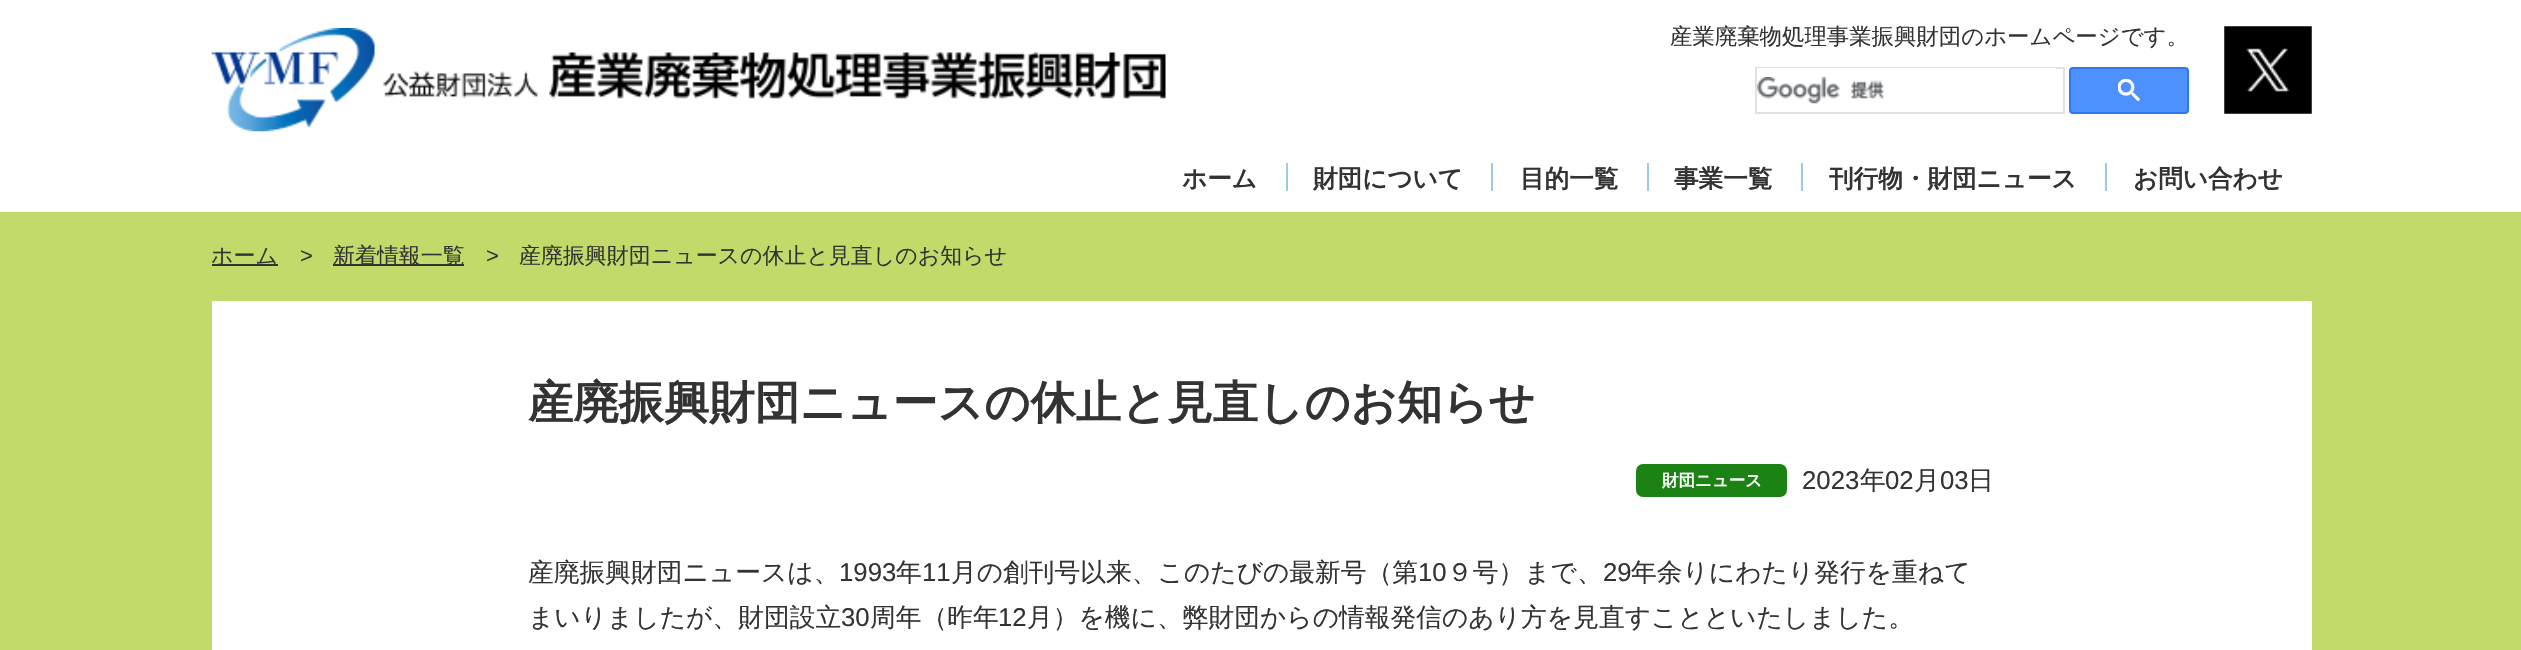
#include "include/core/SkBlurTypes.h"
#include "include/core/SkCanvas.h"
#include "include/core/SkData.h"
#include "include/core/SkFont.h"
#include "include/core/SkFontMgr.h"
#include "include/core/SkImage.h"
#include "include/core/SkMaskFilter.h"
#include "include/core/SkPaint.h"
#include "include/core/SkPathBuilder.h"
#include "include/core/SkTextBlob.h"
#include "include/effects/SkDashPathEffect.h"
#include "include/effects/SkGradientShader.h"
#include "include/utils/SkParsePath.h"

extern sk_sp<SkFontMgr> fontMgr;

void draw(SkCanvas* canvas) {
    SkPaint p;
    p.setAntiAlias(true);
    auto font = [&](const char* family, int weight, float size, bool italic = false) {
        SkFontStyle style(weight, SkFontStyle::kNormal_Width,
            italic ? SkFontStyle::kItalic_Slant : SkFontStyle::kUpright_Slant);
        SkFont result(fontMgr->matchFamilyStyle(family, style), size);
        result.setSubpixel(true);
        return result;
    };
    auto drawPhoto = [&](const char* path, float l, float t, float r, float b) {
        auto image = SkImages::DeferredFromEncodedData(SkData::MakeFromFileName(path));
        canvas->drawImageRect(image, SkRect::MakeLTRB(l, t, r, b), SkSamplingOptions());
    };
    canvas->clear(0xFFFFFFFF);
    drawPhoto("media/1.png", 211, 28, 1166, 132);
    auto font1 = font("WenQuanYi Zen Hei", 500, 22.4f);
    p.setColor(0xFF333333);
    canvas->drawString("産業廃棄物処理事業振興財団のホームページです。", 1670, 44, font1, p);
    p.setStyle(SkPaint::kStroke_Style);
    p.setStrokeWidth(2);
    p.setColor(0xFFDFE1E5);
    canvas->drawRect(SkRect::MakeLTRB(1756, 68, 2064, 113), p);
    p.setStyle(SkPaint::kFill_Style);
    p.setColor(0xFFFFFFFF);
    canvas->drawRect(SkRect::MakeLTRB(1757, 68, 2056, 69), p);
    drawPhoto("media/2.png", 1757, 77, 1885, 104);
    p.setColor(0xFF4D90FE);
    canvas->drawRoundRect(SkRect::MakeLTRB(2070, 68, 2188, 113), 3, 3, p);
    p.setStyle(SkPaint::kStroke_Style);
    p.setColor(0xFF3079ED);
    canvas->drawRoundRect(SkRect::MakeLTRB(2070, 68, 2188, 113), 3, 3, p);
    drawPhoto("media/3.png", 2118, 79, 2140, 102);
    drawPhoto("media/4.png", 2224, 26, 2312, 114);
    auto font2 = font("WenQuanYi Zen Hei", 700, 24.6f);
    p.setStyle(SkPaint::kFill_Style);
    p.setColor(0xFF333333);
    canvas->drawString("ホーム", 1182, 187, font2, p);
    p.setColor(0xFF9FCBE1);
    canvas->drawRect(SkRect::MakeLTRB(1286, 163, 1288, 191), p);
    p.setColor(0xFF333333);
    canvas->drawString("財団について", 1313, 187, font2, p);
    p.setColor(0xFF9FCBE1);
    canvas->drawRect(SkRect::MakeLTRB(1491, 163, 1493, 191), p);
    p.setColor(0xFF333333);
    canvas->drawString("目的一覧", 1520, 187, font2, p);
    p.setColor(0xFF9FCBE1);
    canvas->drawRect(SkRect::MakeLTRB(1647, 163, 1649, 191), p);
    p.setColor(0xFF333333);
    canvas->drawString("事業一覧", 1674, 187, font2, p);
    p.setColor(0xFF9FCBE1);
    canvas->drawRect(SkRect::MakeLTRB(1801, 163, 1803, 191), p);
    p.setColor(0xFF333333);
    canvas->drawString("刊行物・財団ニュース", 1829, 187, font2, p);
    p.setColor(0xFF9FCBE1);
    canvas->drawRect(SkRect::MakeLTRB(2105, 163, 2107, 191), p);
    p.setColor(0xFF333333);
    canvas->drawString("お問い合わせ", 2133, 187, font2, p);
    p.setColor(0xFFC2DA69);
    canvas->drawRect(SkRect::MakeLTRB(0, 212, 2521, 650), p);
    p.setColor(0xFF333333);
    canvas->drawRect(SkRect::MakeLTRB(212, 264, 278, 266), p);
    auto font3 = font("WenQuanYi Zen Hei", 500, 21.95f);
    canvas->drawString("ホーム", 211, 263, font3, p);
    auto font4 = font("Liberation Sans", 400, 21.95f);
    canvas->drawString(">", 300, 263, font4, p);
    canvas->drawRect(SkRect::MakeLTRB(333, 264, 464, 266), p);
    canvas->drawString("新着情報一覧", 333, 263, font3, p);
    canvas->drawString(">", 486, 263, font4, p);
    canvas->drawString("産廃振興財団ニュースの休止と見直しのお知らせ", 519, 263, font3, p);
    p.setColor(0xFFFFFFFF);
    canvas->drawRect(SkRect::MakeLTRB(212, 301, 2312, 650), p);
    auto font5 = font("WenQuanYi Zen Hei", 700, 45.3f);
    p.setColor(0xFF333333);
    canvas->drawString("産廃振興財団ニュースの休止と見直しのお知らせ", 528, 418, font5, p);
    p.setColor(0xFF1C8213);
    canvas->drawRoundRect(SkRect::MakeLTRB(1636, 464, 1787, 497), 7, 7, p);
    auto font6 = font("WenQuanYi Zen Hei", 700, 16.5f);
    p.setColor(0xFFFFFFFF);
    canvas->drawString("財団ニュース", 1662, 486, font6, p);
    auto font7 = font("Liberation Sans", 400, 25.75f);
    p.setColor(0xFF333333);
    canvas->drawString("2023", 1802, 489, font7, p);
    auto font8 = font("WenQuanYi Zen Hei", 500, 25.75f);
    canvas->drawString("年", 1860, 489, font8, p);
    canvas->drawString("02", 1885, 489, font7, p);
    canvas->drawString("月", 1914, 489, font8, p);
    canvas->drawString("03", 1940, 489, font7, p);
    canvas->drawString("日", 1968, 489, font8, p);
    canvas->drawString("産廃振興財団ニュースは、", 528, 581, font8, p);
    canvas->drawString("1993", 839, 581, font7, p);
    canvas->drawString("年", 896, 581, font8, p);
    canvas->drawString("11", 922, 581, font7, p);
    canvas->drawString("月の創刊号以来、このたびの最新号（第", 951, 581, font8, p);
    canvas->drawString("10", 1418, 581, font7, p);
    canvas->drawString("９号）まで、", 1447, 581, font8, p);
    canvas->drawString("29", 1603, 581, font7, p);
    canvas->drawString("年余りにわたり発行を重ねて", 1631, 581, font8, p);
    canvas->drawString("まいりましたが、財団設立", 528, 626, font8, p);
    canvas->drawString("30", 841, 626, font7, p);
    canvas->drawString("周年（昨年", 870, 626, font8, p);
    canvas->drawString("12", 998, 626, font7, p);
    canvas->drawString("月）を機に、弊財団からの情報発信のあり方を見直すことといたしました。", 1027, 626, font8, p);
}
